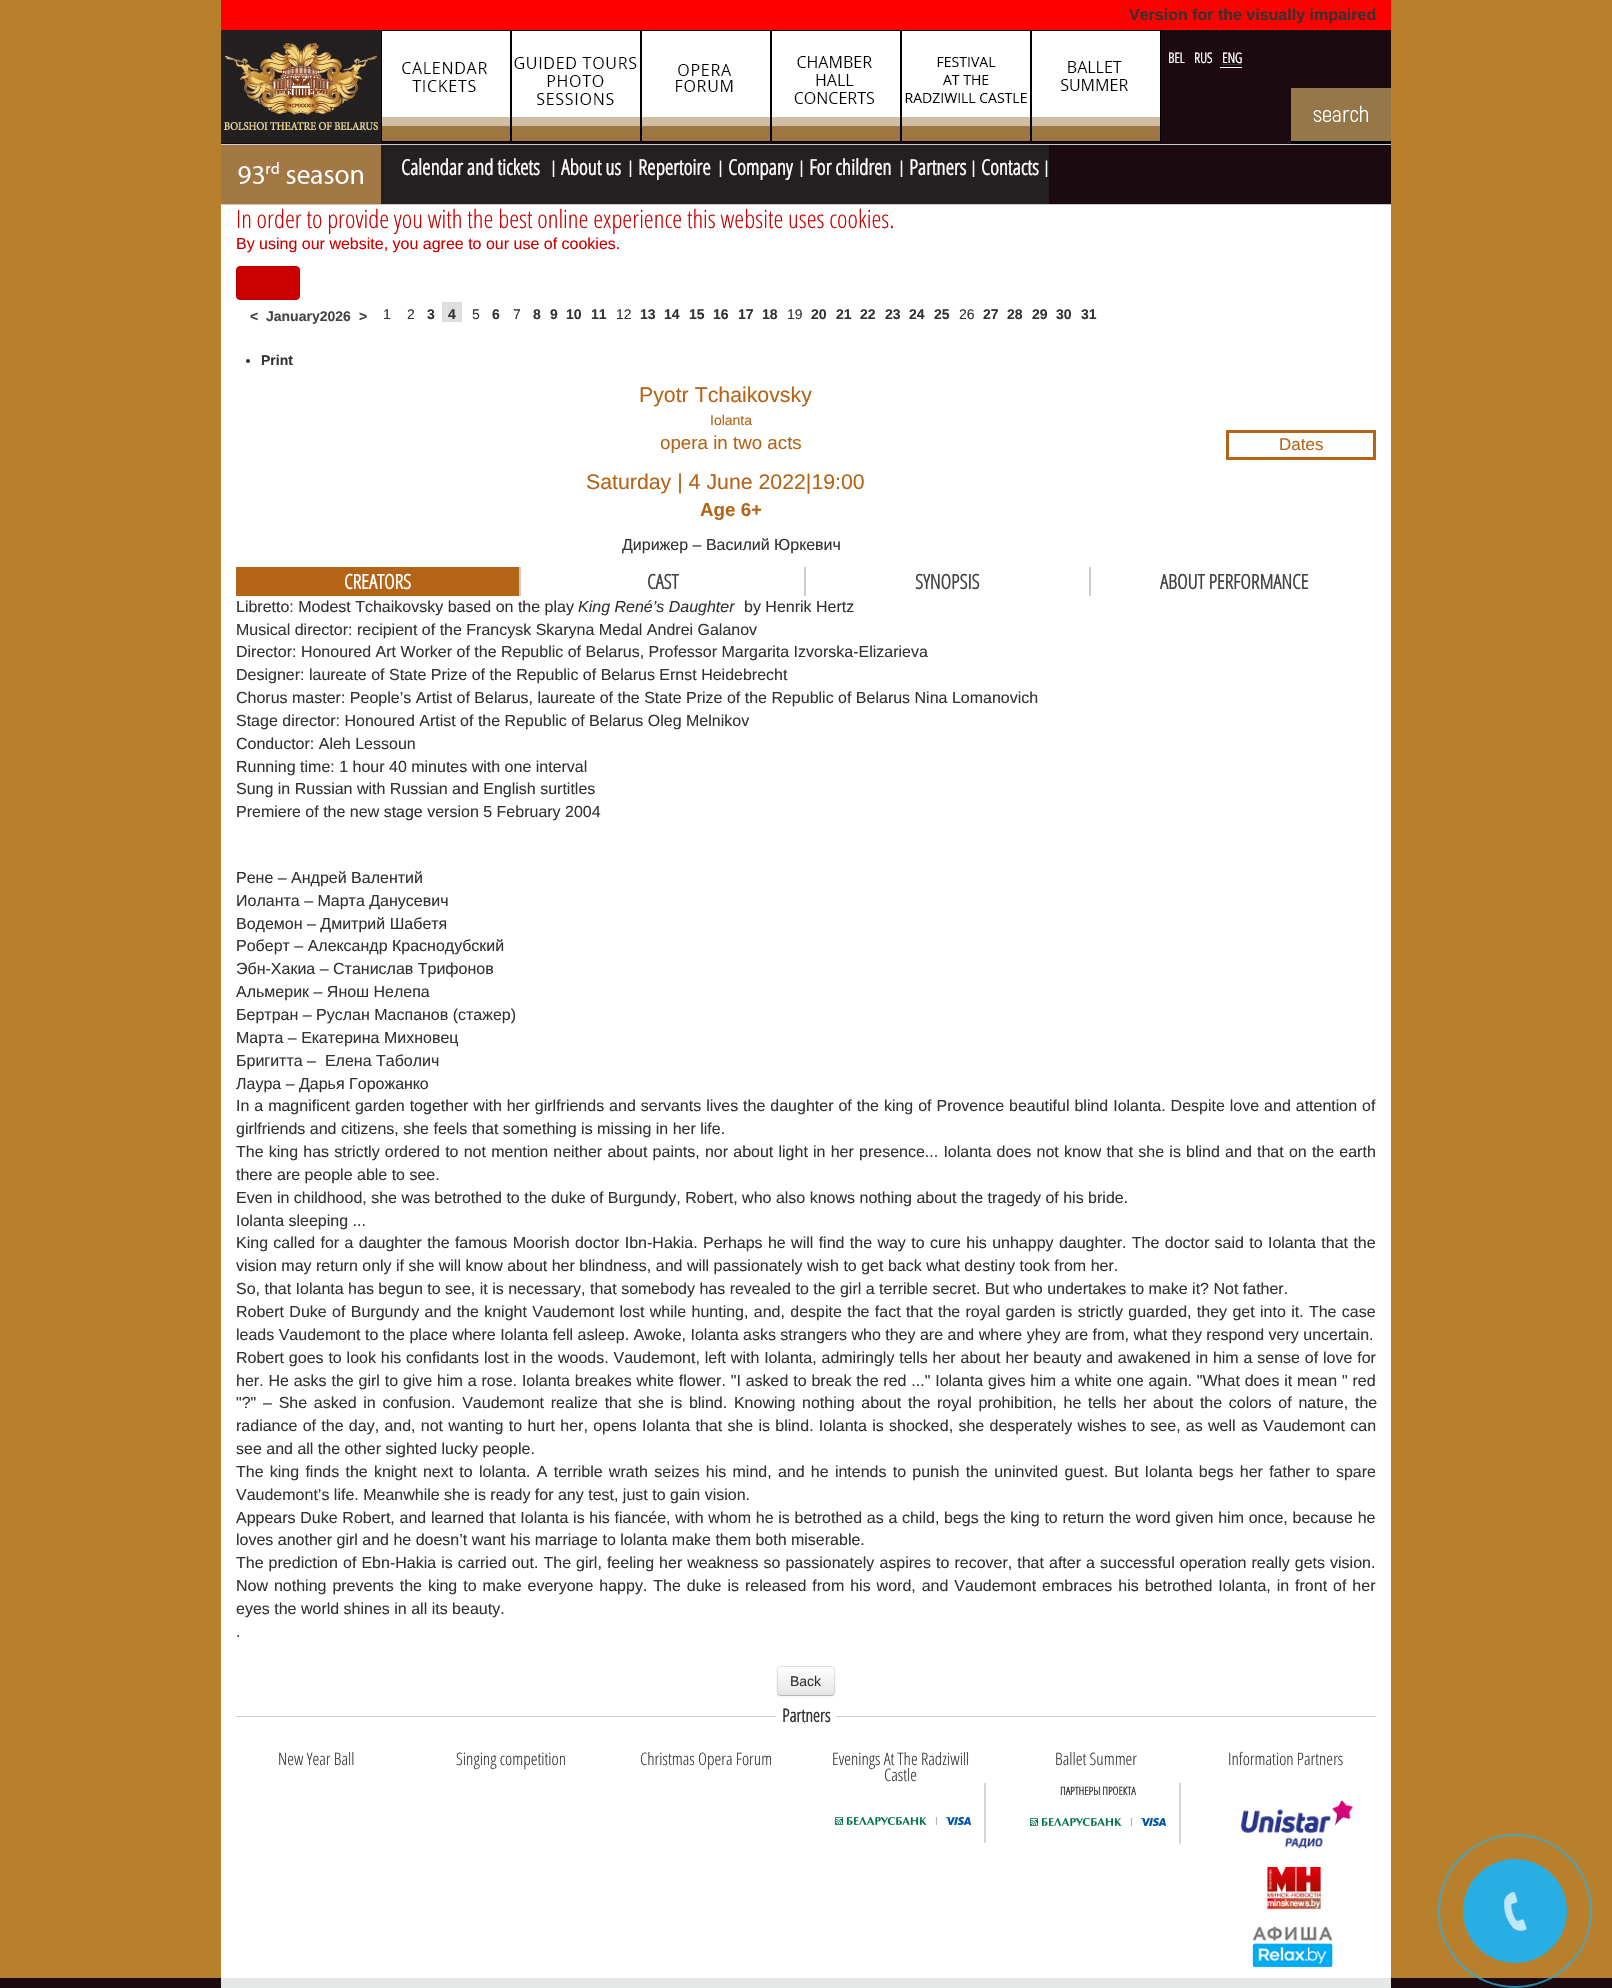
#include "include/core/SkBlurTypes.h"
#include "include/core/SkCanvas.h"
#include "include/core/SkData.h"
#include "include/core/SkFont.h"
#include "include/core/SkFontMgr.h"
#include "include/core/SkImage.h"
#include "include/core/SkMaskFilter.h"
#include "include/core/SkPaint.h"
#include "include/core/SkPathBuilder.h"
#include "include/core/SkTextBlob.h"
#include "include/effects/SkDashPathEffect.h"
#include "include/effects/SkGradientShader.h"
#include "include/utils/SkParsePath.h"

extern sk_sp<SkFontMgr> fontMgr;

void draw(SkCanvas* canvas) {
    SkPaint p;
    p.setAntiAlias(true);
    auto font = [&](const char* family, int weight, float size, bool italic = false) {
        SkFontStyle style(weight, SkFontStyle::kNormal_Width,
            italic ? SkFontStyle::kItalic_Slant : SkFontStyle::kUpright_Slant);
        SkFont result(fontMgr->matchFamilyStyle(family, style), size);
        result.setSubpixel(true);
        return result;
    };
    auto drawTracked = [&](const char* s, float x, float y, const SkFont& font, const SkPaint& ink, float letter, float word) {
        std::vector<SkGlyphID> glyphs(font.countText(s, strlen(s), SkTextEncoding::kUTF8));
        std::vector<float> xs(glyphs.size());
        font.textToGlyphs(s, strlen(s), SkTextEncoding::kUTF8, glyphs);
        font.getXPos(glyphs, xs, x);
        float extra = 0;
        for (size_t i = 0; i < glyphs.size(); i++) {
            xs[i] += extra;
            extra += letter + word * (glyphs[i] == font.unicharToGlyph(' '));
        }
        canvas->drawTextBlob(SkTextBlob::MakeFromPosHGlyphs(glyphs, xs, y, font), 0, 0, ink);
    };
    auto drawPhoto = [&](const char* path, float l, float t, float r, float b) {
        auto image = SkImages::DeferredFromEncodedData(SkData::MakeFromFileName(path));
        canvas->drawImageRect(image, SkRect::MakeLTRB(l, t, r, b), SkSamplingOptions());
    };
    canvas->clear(0xFFB8802D);
    p.setColor(0xFF1B0A0F);
    canvas->drawRect(SkRect::MakeLTRB(221, 30, 1391, 144), p);
    p.setColor(0xFFFF0000);
    canvas->drawRect(SkRect::MakeLTRB(221, 0, 1391, 30), p);
    auto font1 = font("Liberation Sans", 700, 16);
    p.setColor(0xFF333333);
    canvas->drawString("Version for the visually impaired", 1129, 20, font1, p);
    drawPhoto("media/1.png", 381, 30, 511, 142);
    drawPhoto("media/2.png", 511, 30, 641, 142);
    drawPhoto("media/3.png", 641, 30, 771, 142);
    drawPhoto("media/4.png", 771, 30, 901, 142);
    drawPhoto("media/5.png", 901, 30, 1031, 142);
    drawPhoto("media/6.png", 1031, 30, 1161, 142);
    drawPhoto("media/7.png", 221, 30, 381, 143);
    auto font2 = font("Open Sans", 700, 14);
    p.setColor(0xFFFFFFFF);
    {
        const struct { const char* s; float x, y; } items[] = {
            {"BEL", 1168, 63},
            {"RUS", 1194, 63},
            {"ENG", 1222, 63},
        };
        for (auto [s, x, y] : items) {
            canvas->drawString(s, x, y, font2, p);
        }
    }
    canvas->drawRect(SkRect::MakeLTRB(1220, 67, 1242, 68), p);
    p.setColor(0xFF333333);
    canvas->drawRect(SkRect::MakeLTRB(1222, 64, 1242, 65), p);
    drawPhoto("media/8.png", 1291, 88, 1391, 144);
    {
        const struct { float l, t, r, b; SkColor color; } items[] = {
            {1049, 145, 1391, 204, 0xFF1B0A0F},
            {221, 144, 1391, 145, 0xFFCCCCCC},
            {221, 204, 1391, 205, 0xFFCCCCCC},
            {381, 145, 1049, 204, 0xFF242021},
        };
        for (auto [l, t, r, b, color] : items) {
            p.setColor(color);
            canvas->drawRect(SkRect::MakeLTRB(l, t, r, b), p);
        }
    }
    drawPhoto("media/9.png", 221, 145, 381, 204);
    drawPhoto("media/10.png", 552, 157, 556, 177);
    auto font3 = font("Open Sans", 700, 21.3f);
    p.setColor(0xFFFFFFFF);
    canvas->drawString("Calendar and tickets", 401, 175, font3, p);
    drawPhoto("media/10.png", 629, 157, 633, 177);
    canvas->drawString("About us", 561, 175, font3, p);
    drawPhoto("media/10.png", 719, 157, 723, 177);
    canvas->drawString("Repertoire", 638, 175, font3, p);
    drawPhoto("media/10.png", 800, 157, 804, 177);
    canvas->drawString("Company", 728, 175, font3, p);
    drawPhoto("media/10.png", 900, 157, 904, 177);
    canvas->drawString("For children", 809, 175, font3, p);
    drawPhoto("media/10.png", 972, 157, 976, 177);
    canvas->drawString("Partners", 909, 175, font3, p);
    drawPhoto("media/10.png", 1045, 157, 1049, 177);
    canvas->drawString("Contacts", 981, 175, font3, p);
    canvas->drawRect(SkRect::MakeLTRB(221, 205, 1391, 1978), p);
    auto font4 = font("Open Sans", 300, 25.2f);
    p.setColor(0xFFCC0000);
    canvas->drawString("In order to provide you with the best online experience this website uses cookies.", 236, 228, font4, p);
    auto font5 = font("Liberation Sans", 400, 16);
    canvas->drawString("By using our website, you agree to our use of cookies.", 236, 249, font5, p);
    canvas->drawRoundRect(SkRect::MakeLTRB(236.5f, 266.5f, 299.5f, 299.5f), 3.5f, 3.5f, p);
    p.setStyle(SkPaint::kStroke_Style);
    p.setStrokeWidth(1);
    p.setColor(0xFFB30000);
    canvas->drawRoundRect(SkRect::MakeLTRB(236.5f, 266.5f, 299.5f, 299.5f), 3.5f, 3.5f, p);
    auto font6 = font("Liberation Sans", 700, 14);
    p.setStyle(SkPaint::kFill_Style);
    p.setColor(0xFF444444);
    {
        const struct { const char* s; float x, y; } items[] = {
            {"<", 250, 321},
            {"January2026", 266, 321},
            {">", 359, 321},
        };
        for (auto [s, x, y] : items) {
            canvas->drawString(s, x, y, font6, p);
        }
    }
    auto font7 = font("Liberation Sans", 400, 14);
    p.setColor(0xFF333333);
    canvas->drawString("1", 383, 319, font7, p);
    canvas->drawString("2", 407, 319, font7, p);
    canvas->drawString("3", 427, 319, font6, p);
    p.setColor(0xFFDEDEDE);
    canvas->drawRect(SkRect::MakeLTRB(442, 302, 462, 322), p);
    p.setColor(0xFF333333);
    canvas->drawString("4", 448, 319, font6, p);
    canvas->drawString("5", 472, 319, font7, p);
    canvas->drawString("6", 492, 319, font6, p);
    canvas->drawString("7", 513, 319, font7, p);
    {
        const struct { const char* s; float x, y; } items[] = {
            {"8", 533, 319},
            {"9", 550, 319},
            {"10", 566, 319},
            {"11", 591, 319},
        };
        for (auto [s, x, y] : items) {
            canvas->drawString(s, x, y, font6, p);
        }
    }
    canvas->drawString("12", 616, 319, font7, p);
    {
        const struct { const char* s; float x, y; } items[] = {
            {"13", 640, 319},
            {"14", 664, 319},
            {"15", 689, 319},
            {"16", 713, 319},
            {"17", 738, 319},
            {"18", 762, 319},
        };
        for (auto [s, x, y] : items) {
            canvas->drawString(s, x, y, font6, p);
        }
    }
    canvas->drawString("19", 787, 319, font7, p);
    {
        const struct { const char* s; float x, y; } items[] = {
            {"20", 811, 319},
            {"21", 836, 319},
            {"22", 860, 319},
            {"23", 885, 319},
            {"24", 909, 319},
            {"25", 934, 319},
        };
        for (auto [s, x, y] : items) {
            canvas->drawString(s, x, y, font6, p);
        }
    }
    canvas->drawString("26", 959, 319, font7, p);
    {
        const struct { const char* s; float x, y; } items[] = {
            {"27", 983, 319},
            {"28", 1007, 319},
            {"29", 1032, 319},
            {"30", 1056, 319},
            {"31", 1081, 319},
        };
        for (auto [s, x, y] : items) {
            canvas->drawString(s, x, y, font6, p);
        }
    }
    canvas->drawCircle(248, 361, 2, p);
    canvas->drawString("Print", 261, 365, font6, p);
    auto font8 = font("Liberation Sans", 400, 21.3f);
    p.setColor(0xFFB36417);
    canvas->drawString("Pyotr Tchaikovsky", 639, 402, font8, p);
    canvas->drawString("Iolanta", 710, 425, font7, p);
    auto font9 = font("Liberation Sans", 400, 18.75f);
    canvas->drawString("opera in two acts", 660, 449, font9, p);
    canvas->drawString("Saturday | 4 June 2022|19:00", 586, 489, font8, p);
    auto font10 = font("Liberation Sans", 700, 18.75f);
    canvas->drawString("Age 6+", 700, 516, font10, p);
    p.setColor(0xFF333333);
    canvas->drawString("Дирижер – Василий Юркевич", 622, 550, font5, p);
    p.setColor(0xFFB36417);
    canvas->drawRect(SkRect::MakeLTRB(1226, 430, 1376, 460), p);
    p.setColor(0xFFFFFFFF);
    canvas->drawRect(SkRect::MakeLTRB(1229, 433, 1373, 457), p);
    auto font11 = font("Liberation Sans", 400, 17);
    p.setColor(0xFFB36417);
    canvas->drawString("Dates", 1279, 450, font11, p);
    canvas->drawRect(SkRect::MakeLTRB(236, 567, 519, 596), p);
    p.setColor(0xFFCCCCCC);
    canvas->drawRect(SkRect::MakeLTRB(519, 567, 521, 596), p);
    auto font12 = font("Open Sans", 700, 20.25f);
    p.setColor(0xFFFFFFFF);
    canvas->drawString("CREATORS", 344, 589, font12, p);
    p.setColor(0xFFCCCCCC);
    canvas->drawRect(SkRect::MakeLTRB(804, 567, 806, 596), p);
    p.setColor(0xFF444444);
    canvas->drawString("CAST", 647, 589, font12, p);
    p.setColor(0xFFCCCCCC);
    canvas->drawRect(SkRect::MakeLTRB(1089, 567, 1091, 596), p);
    p.setColor(0xFF444444);
    canvas->drawString("SYNOPSIS", 915, 589, font12, p);
    canvas->drawString("ABOUT PERFORMANCE", 1160, 589, font12, p);
    p.setColor(0xFF333333);
    canvas->drawString("Libretto: Modest Tchaikovsky based on the play", 236, 612, font5, p);
    auto font13 = font("Liberation Sans", 400, 16, true);
    canvas->drawString("King René’s Daughter", 578, 612, font13, p);
    {
        const struct { const char* s; float x, y; } items[] = {
            {"by Henrik Hertz", 744, 612},
            {"Musical director: recipient of the Francysk Skaryna Medal Andrei Galanov", 236, 635},
            {"Director: Honoured Art Worker of the Republic of Belarus, Professor Margarita Izvorska-Elizarieva", 236, 657},
            {"Designer: laureate of State Prize of the Republic of Belarus Ernst Heidebrecht", 236, 680},
            {"Chorus master: People’s Artist of Belarus, laureate of the State Prize of the Republic of Belarus Nina Lomanovich", 236, 703},
            {"Stage director: Honoured Artist of the Republic of Belarus Oleg Melnikov", 236, 726},
            {"Conductor: Aleh Lessoun", 236, 749},
            {"Running time: 1 hour 40 minutes with one interval", 236, 772},
            {"Sung in Russian with Russian and English surtitles", 236, 794},
            {"Premiere of the new stage version 5 February 2004", 236, 817},
            {"Рене – Андрей Валентий", 236, 883},
            {"Иоланта – Марта Данусевич", 236, 906},
            {"Водемон – Дмитрий Шабетя", 236, 929},
            {"Роберт – Александр Краснодубский", 236, 951},
            {"Эбн-Хакиа – Станислав Трифонов", 236, 974},
            {"Альмерик – Янош Нелепа", 236, 997},
            {"Бертран – Руслан Маспанов (стажер)", 236, 1020},
            {"Марта – Екатерина Михновец", 236, 1043},
            {"Бригитта –  Елена Таболич", 236, 1066},
            {"Лаура – Дарья Горожанко", 236, 1089},
        };
        for (auto [s, x, y] : items) {
            canvas->drawString(s, x, y, font5, p);
        }
    }
    drawTracked("In a magnificent garden together with her girlfriends and servants lives the daughter of the king of Provence beautiful blind Iolanta. Despite love and attention of", 236, 1111, font5, p, 0, 0.5f);
    canvas->drawString("girlfriends and citizens, she feels that something is missing in her life.", 236, 1134, font5, p);
    drawTracked("The king has strictly ordered to not mention neither about paints, nor about light in her presence... Iolanta does not know that she is blind and that on the earth", 236, 1157, font5, p, 0, 0.75f);
    {
        const struct { const char* s; float x, y; } items[] = {
            {"there are people able to see.", 236, 1180},
            {"Even in childhood, she was betrothed to the duke of Burgundy, Robert, who also knows nothing about the tragedy of his bride.", 236, 1203},
            {"Iolanta sleeping ...", 236, 1226},
        };
        for (auto [s, x, y] : items) {
            canvas->drawString(s, x, y, font5, p);
        }
    }
    drawTracked("King called for a daughter the famous Moorish doctor Ibn-Hakia. Perhaps he will find the way to cure his unhappy daughter. The doctor said to Iolanta that the", 236, 1248, font5, p, 0, 0.9f);
    canvas->drawString("vision may return only if she will know about her blindness, and will passionately wish to get back what destiny took from her.", 236, 1271, font5, p);
    canvas->drawString("So, that Iolanta has begun to see, it is necessary, that somebody has revealed to the girl a terrible secret. But who undertakes to make it? Not father.", 236, 1294, font5, p);
    drawTracked("Robert Duke of Burgundy and the knight Vaudemont lost while hunting, and, despite the fact that the royal garden is strictly guarded, they get into it. The case", 236, 1317, font5, p, 0, 0.9f);
    canvas->drawString("leads Vaudemont to the place where Iolanta fell asleep. Awoke, Iolanta asks strangers who they are and where yhey are from, what they respond very uncertain.", 236, 1340, font5, p);
    drawTracked("Robert goes to look his confidants lost in the woods. Vaudemont, left with Iolanta, admiringly tells her about her beauty and awakened in him a sense of love for", 236, 1363, font5, p, 0, 0.4f);
    drawTracked("her. He asks the girl to give him a rose. Iolanta breakes white flower. \"I asked to break the red ...\" Iolanta gives him a white one again. \"What does it mean \" red", 236, 1386, font5, p, 0, 0.4f);
    drawTracked("\"?\" – She asked in confusion. Vaudemont realize that she is blind. Knowing nothing about the royal prohibition, he tells her about the colors of nature, the", 236, 1408, font5, p, 0, 2.3f);
    drawTracked("radiance of the day, and, not wanting to hurt her, opens Iolanta that she is blind. Iolanta is shocked, she desperately wishes to see, as well as Vaudemont can", 236, 1431, font5, p, 0, 0.85f);
    canvas->drawString("see and all the other sighted lucky people.", 236, 1454, font5, p);
    drawTracked("The king finds the knight next to lolanta. A terrible wrath seizes his mind, and he intends to punish the uninvited guest. But Iolanta begs her father to spare", 236, 1477, font5, p, 0, 1.8f);
    canvas->drawString("Vaudemont’s life. Meanwhile she is ready for any test, just to gain vision.", 236, 1500, font5, p);
    drawTracked("Appears Duke Robert, and learned that Iolanta is his fiancée, with whom he is betrothed as a child, begs the king to return the word given him once, because he", 236, 1523, font5, p, 0, 0.25f);
    canvas->drawString("loves another girl and he doesn’t want his marriage to lolanta make them both miserable.", 236, 1545, font5, p);
    drawTracked("The prediction of Ebn-Hakia is carried out. The girl, feeling her weakness so passionately aspires to recover, that after a successful operation really gets vision.", 236, 1568, font5, p, 0, 0.6f);
    drawTracked("Now nothing prevents the king to make everyone happy. The duke is released from his word, and Vaudemont embraces his betrothed Iolanta, in front of her", 236, 1591, font5, p, 0, 1.5f);
    canvas->drawString("eyes the world shines in all its beauty.", 236, 1614, font5, p);
    canvas->drawString(".", 236, 1637, font5, p);
    p.setColor(0x0D000000);
    p.setMaskFilter(SkMaskFilter::MakeBlur(kNormal_SkBlurStyle, 1));
    canvas->drawRoundRect(SkRect::MakeLTRB(777, 1667, 835, 1697), 4, 4, p);
    p.setMaskFilter(nullptr);
    p.setColor(0xFFF5F5F5);
    canvas->drawRoundRect(SkRect::MakeLTRB(777, 1666, 835, 1696), 4, 4, p);
    canvas->save();
    canvas->clipPath(SkPathBuilder().moveTo(781, 1666).lineTo(831, 1666).cubicTo(833, 1666, 835, 1668, 835, 1670).lineTo(835, 1692).cubicTo(835, 1694, 833, 1696, 831, 1696).lineTo(781, 1696).cubicTo(779, 1696, 777, 1694, 777, 1692).lineTo(777, 1670).cubicTo(777, 1668, 779, 1666, 781, 1666).close().detach(), true);
    {
        const SkColor colors[] = {0xFFFFFFFF, 0xFFE6E6E6};
        const float stops[] = {0, 1};
        const SkPoint ends[] = {{806, 1667}, {806, 1695}};
        p.setShader(SkGradientShader::MakeLinear(ends, colors, stops, 2, SkTileMode::kClamp));
        p.setAlpha(255);
    }
    canvas->drawRect(SkRect::MakeLTRB(777, 1667, 835, 1695), p);
    canvas->restore();
    p.setShader(nullptr);
    p.setColor(0xFFFFFFFF);
    canvas->drawPath(SkPathBuilder().moveTo(781, 1668).lineTo(831, 1668).cubicTo(833, 1668, 834, 1669, 834, 1671).cubicTo(834, 1665, 827, 1667, 823, 1667).lineTo(789, 1667).cubicTo(785, 1667, 778, 1665, 778, 1671).cubicTo(778, 1669, 779, 1668, 781, 1668).close().detach(), p);
    p.setStyle(SkPaint::kStroke_Style);
    p.setColor(0xFFB3B3B3);
    canvas->drawPath(SkPathBuilder().moveTo(833.5f, 1694.5f).lineTo(831.5f, 1695.5f).lineTo(780.5f, 1695.5f).lineTo(778.5f, 1694.5f).detach(), p);
    p.setColor(0x1A000000);
    canvas->drawPath(SkPathBuilder().moveTo(778.5f, 1694.5f).cubicTo(776.5f, 1692.5f, 777.5f, 1684, 777.5f, 1681).cubicTo(777.5f, 1666, 775, 1666.5f, 789.5f, 1666.5f).lineTo(822.5f, 1666.5f).cubicTo(837, 1666.5f, 834.5f, 1666, 834.5f, 1681).cubicTo(834.5f, 1684, 835.5f, 1692.5f, 833.5f, 1694.5f).detach(), p);
    p.setStyle(SkPaint::kFill_Style);
    p.setColor(0xFF333333);
    canvas->drawString("Back", 790, 1686, font7, p);
    p.setColor(0xFFCDCDCD);
    canvas->drawRect(SkRect::MakeLTRB(236, 1716, 1376, 1717), p);
    p.setColor(0xFFFFFFFF);
    canvas->drawRect(SkRect::MakeLTRB(776, 1716, 836, 1717), p);
    auto font14 = font("Open Sans", 700, 18);
    p.setColor(0xFF333333);
    canvas->drawString("Partners", 782, 1722, font14, p);
    auto font15 = font("Open Sans", 300, 17.25f);
    {
        const struct { const char* s; float x, y; } items[] = {
            {"New Year Ball", 278, 1765},
            {"Singing competition", 456, 1765},
            {"Christmas Opera Forum", 640, 1765},
            {"Evenings At The Radziwill", 832, 1765},
            {"Castle", 884, 1781},
        };
        for (auto [s, x, y] : items) {
            canvas->drawString(s, x, y, font15, p);
        }
    }
    p.setColor(0xFFD5D5D7);
    canvas->drawRect(SkRect::MakeLTRB(984, 1783, 986, 1843), p);
    drawPhoto("media/11.png", 835, 1817, 971, 1825);
    p.setColor(0xFF333333);
    canvas->drawString("Ballet Summer", 1055, 1765, font15, p);
    p.setColor(0xFFD5D5D7);
    canvas->drawRect(SkRect::MakeLTRB(1179, 1783, 1181, 1844), p);
    auto font16 = font("Open Sans", 700, 11.25f);
    p.setColor(0xFF333333);
    canvas->drawString("ПАРТНЕРЫ ПРОЕКТА", 1060, 1795, font16, p);
    drawPhoto("media/11.png", 1030, 1818, 1166, 1826);
    canvas->drawString("Information Partners", 1228, 1765, font15, p);
    drawPhoto("media/12.png", 1240, 1800, 1353, 1849);
    drawPhoto("media/13.png", 1267, 1867, 1321, 1910);
    drawPhoto("media/14.png", 1252, 1926, 1334, 1968);
    p.setColor(0xFF1B0A0F);
    canvas->drawRect(SkRect::MakeLTRB(0, 1978, 1612, 1988), p);
    p.setColor(0xFFE6E8E7);
    canvas->drawRect(SkRect::MakeLTRB(221, 1978, 1391, 1988), p);
    p.setStyle(SkPaint::kStroke_Style);
    p.setStrokeWidth(2);
    p.setColor(0x8029AEE3);
    canvas->drawCircle(1515, 1911, 76, p);
    canvas->drawCircle(1515, 1911, 76, p);
    p.setStyle(SkPaint::kFill_Style);
    p.setColor(0xFF29AEE3);
    canvas->drawCircle(1515, 1911, 52, p);
    drawPhoto("media/15.png", 1504, 1892, 1527, 1931);
}
